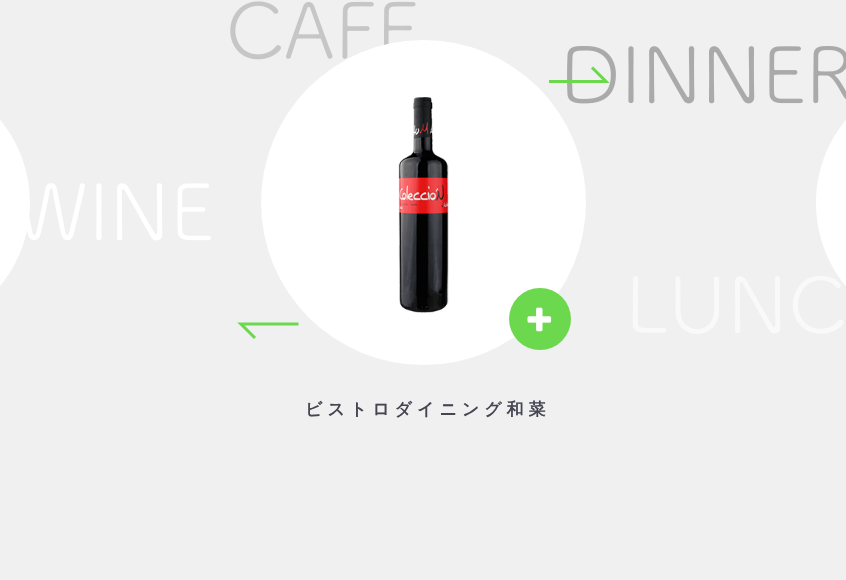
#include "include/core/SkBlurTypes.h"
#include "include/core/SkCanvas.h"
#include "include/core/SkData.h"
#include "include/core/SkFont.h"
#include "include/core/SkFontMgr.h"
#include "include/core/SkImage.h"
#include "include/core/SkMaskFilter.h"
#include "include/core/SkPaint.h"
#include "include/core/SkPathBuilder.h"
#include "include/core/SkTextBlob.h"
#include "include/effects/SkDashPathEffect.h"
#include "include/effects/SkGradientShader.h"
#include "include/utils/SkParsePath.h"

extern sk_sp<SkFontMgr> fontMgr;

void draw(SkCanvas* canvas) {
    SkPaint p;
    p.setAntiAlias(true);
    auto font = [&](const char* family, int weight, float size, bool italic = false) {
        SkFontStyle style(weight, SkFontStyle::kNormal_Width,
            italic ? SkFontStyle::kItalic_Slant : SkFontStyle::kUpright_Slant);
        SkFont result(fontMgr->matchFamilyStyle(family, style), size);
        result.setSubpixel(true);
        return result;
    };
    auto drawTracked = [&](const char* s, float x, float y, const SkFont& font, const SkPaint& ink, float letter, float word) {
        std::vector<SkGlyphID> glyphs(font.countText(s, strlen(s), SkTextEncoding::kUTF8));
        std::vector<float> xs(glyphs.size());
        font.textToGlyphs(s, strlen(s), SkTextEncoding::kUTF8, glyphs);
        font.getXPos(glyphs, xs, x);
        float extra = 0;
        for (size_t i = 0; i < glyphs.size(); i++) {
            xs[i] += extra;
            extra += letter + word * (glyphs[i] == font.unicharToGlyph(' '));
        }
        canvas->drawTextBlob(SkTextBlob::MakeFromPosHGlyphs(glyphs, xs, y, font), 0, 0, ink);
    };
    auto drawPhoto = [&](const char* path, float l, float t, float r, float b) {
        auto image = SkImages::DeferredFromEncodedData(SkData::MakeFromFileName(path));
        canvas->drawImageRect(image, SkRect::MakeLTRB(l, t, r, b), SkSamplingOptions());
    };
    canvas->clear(0xFFF0F0F0);
    drawPhoto("media/1.png", 27, 1, 846, 334);
    p.setColor(0xFFFFFFFF);
    canvas->drawPath(SkPathBuilder().moveTo(0, 73).lineTo(-100, 73).cubicTo(-28, 73, 30, 131, 30, 203).cubicTo(30, 275, -28, 333, -100, 333).lineTo(0, 333).close().detach(), p);
    p.setStyle(SkPaint::kStroke_Style);
    p.setStrokeWidth(3.1f);
    p.setColor(0xFF6CD84E);
    canvas->drawPath(SkPathBuilder().moveTo(255, 338).lineTo(241, 324).lineTo(298.5f, 324).detach(), p);
    canvas->save();
    canvas->clipRect(SkRect::MakeLTRB(549, 65, 611, 84));
    canvas->drawPath(SkPathBuilder().moveTo(592, 67.5f).lineTo(606, 81.5f).lineTo(548.5f, 81.5f).detach(), p);
    canvas->restore();
    p.setStyle(SkPaint::kFill_Style);
    p.setColor(0xFFFFFFFF);
    canvas->drawPath(SkPathBuilder().moveTo(946, 73).lineTo(846, 73).lineTo(846, 333).lineTo(946, 333).cubicTo(874, 333, 816, 275, 816, 203).cubicTo(816, 131, 874, 73, 946, 73).close().detach(), p);
    canvas->drawCircle(423.5f, 202.5f, 162.5f, p);
    drawPhoto("media/2.png", 398, 97, 449, 313);
    p.setColor(0xFF6CD84E);
    canvas->drawCircle(540, 319, 31, p);
    drawPhoto("media/3.png", 527, 307, 552, 332);
    auto font1 = font("WenQuanYi Zen Hei", 700, 17);
    p.setColor(0xFF464653);
    drawTracked("ビストロダイニング和菜", 305, 415, font1, p, 5, 0);
}
